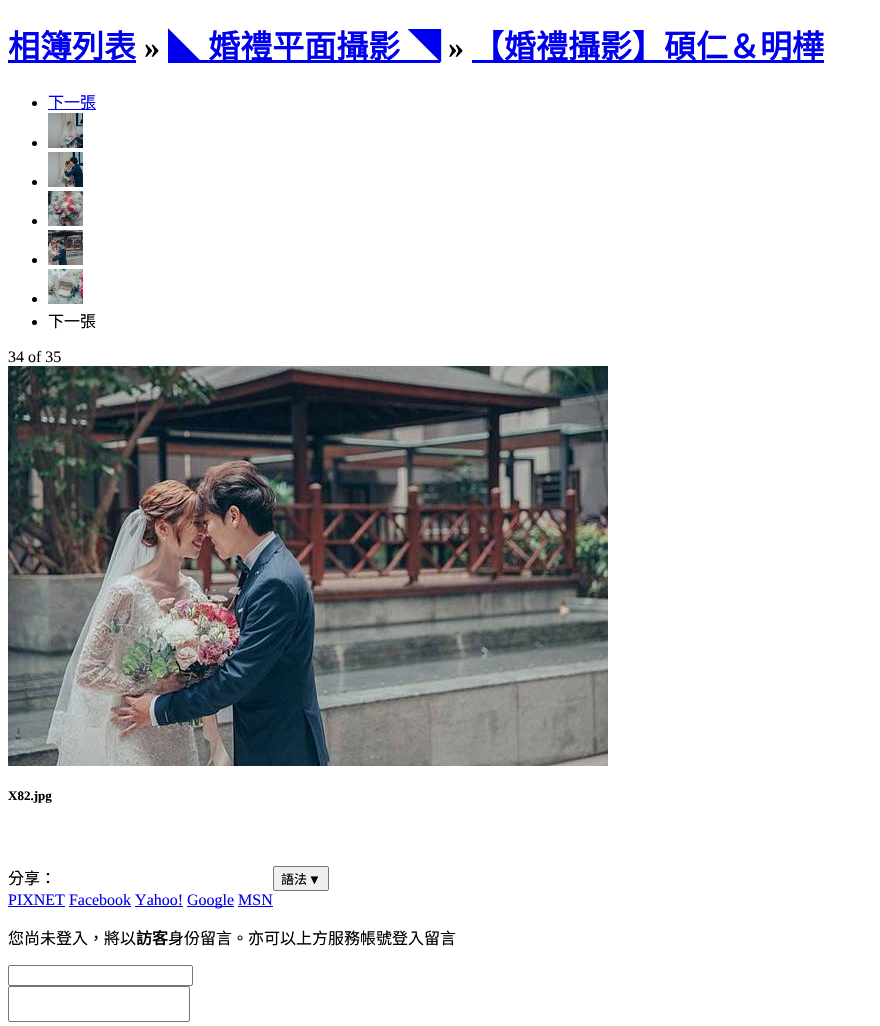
#include "include/core/SkBlurTypes.h"
#include "include/core/SkCanvas.h"
#include "include/core/SkData.h"
#include "include/core/SkFont.h"
#include "include/core/SkFontMgr.h"
#include "include/core/SkImage.h"
#include "include/core/SkMaskFilter.h"
#include "include/core/SkPaint.h"
#include "include/core/SkPathBuilder.h"
#include "include/core/SkTextBlob.h"
#include "include/effects/SkDashPathEffect.h"
#include "include/effects/SkGradientShader.h"
#include "include/utils/SkParsePath.h"

extern sk_sp<SkFontMgr> fontMgr;

void draw(SkCanvas* canvas) {
    SkPaint p;
    p.setAntiAlias(true);
    auto font = [&](const char* family, int weight, float size, bool italic = false) {
        SkFontStyle style(weight, SkFontStyle::kNormal_Width,
            italic ? SkFontStyle::kItalic_Slant : SkFontStyle::kUpright_Slant);
        SkFont result(fontMgr->matchFamilyStyle(family, style), size);
        result.setSubpixel(true);
        return result;
    };
    auto drawTracked = [&](const char* s, float x, float y, const SkFont& font, const SkPaint& ink, float letter, float word) {
        std::vector<SkGlyphID> glyphs(font.countText(s, strlen(s), SkTextEncoding::kUTF8));
        std::vector<float> xs(glyphs.size());
        font.textToGlyphs(s, strlen(s), SkTextEncoding::kUTF8, glyphs);
        font.getXPos(glyphs, xs, x);
        float extra = 0;
        for (size_t i = 0; i < glyphs.size(); i++) {
            xs[i] += extra;
            extra += letter + word * (glyphs[i] == font.unicharToGlyph(' '));
        }
        canvas->drawTextBlob(SkTextBlob::MakeFromPosHGlyphs(glyphs, xs, y, font), 0, 0, ink);
    };
    auto drawPhoto = [&](const char* path, float l, float t, float r, float b) {
        auto image = SkImages::DeferredFromEncodedData(SkData::MakeFromFileName(path));
        canvas->drawImageRect(image, SkRect::MakeLTRB(l, t, r, b), SkSamplingOptions());
    };
    canvas->clear(0xFFFFFFFF);
    p.setColor(0xFF0000EE);
    canvas->drawRect(SkRect::MakeLTRB(8, 60, 136, 63), p);
    auto font1 = font("Noto Sans CJK TC", 700, 32);
    canvas->drawString("相簿列表", 8, 58, font1, p);
    auto font2 = font("Liberation Serif", 700, 32);
    p.setColor(0xFF000000);
    canvas->drawString("»", 144, 58, font2, p);
    p.setColor(0xFF0000EE);
    canvas->drawRect(SkRect::MakeLTRB(168, 60, 440, 63), p);
    drawTracked("◣ 婚禮平面攝影 ◥", 168, 58, font1, p, 0, 1);
    p.setColor(0xFF000000);
    canvas->drawString("»", 448, 58, font2, p);
    p.setColor(0xFF0000EE);
    canvas->drawRect(SkRect::MakeLTRB(472, 60, 824, 63), p);
    canvas->drawString("【婚禮攝影】碩仁＆明樺", 472, 58, font1, p);
    p.setColor(0xFF000000);
    canvas->drawCircle(34.5f, 103.5f, 2.5f, p);
    p.setColor(0xFF0000EE);
    canvas->drawRect(SkRect::MakeLTRB(48, 109, 96, 110), p);
    auto font3 = font("Noto Sans CJK TC", 400, 16);
    canvas->drawString("下一張", 48, 108, font3, p);
    p.setColor(0xFF000000);
    canvas->drawCircle(34.5f, 143.5f, 2.5f, p);
    drawPhoto("media/1.png", 48, 113, 83, 148);
    canvas->drawCircle(34.5f, 182.5f, 2.5f, p);
    drawPhoto("media/2.png", 48, 152, 83, 187);
    canvas->drawCircle(34.5f, 221.5f, 2.5f, p);
    drawPhoto("media/3.png", 48, 191, 83, 226);
    canvas->drawCircle(34.5f, 260.5f, 2.5f, p);
    drawPhoto("media/4.png", 48, 230, 83, 265);
    canvas->drawCircle(34.5f, 299.5f, 2.5f, p);
    drawPhoto("media/5.png", 48, 269, 83, 304);
    canvas->drawCircle(34.5f, 322.5f, 2.5f, p);
    canvas->drawString("下一張", 48, 327, font3, p);
    auto font4 = font("Liberation Serif", 400, 16);
    canvas->drawString("34 of 35", 8, 362, font4, p);
    drawPhoto("media/6.png", 8, 366, 608, 766);
    auto font5 = font("Liberation Serif", 700, 13);
    canvas->drawString("X82.jpg", 8, 800, font5, p);
    canvas->drawString("分享：", 8, 884, font3, p);
    p.setColor(0xFFEFEFEF);
    canvas->drawRoundRect(SkRect::MakeLTRB(273.5f, 866.5f, 328.5f, 890.5f), 1.5f, 1.5f, p);
    p.setStyle(SkPaint::kStroke_Style);
    p.setStrokeWidth(1);
    p.setColor(0xFF767676);
    canvas->drawRoundRect(SkRect::MakeLTRB(273.5f, 866.5f, 328.5f, 890.5f), 1.5f, 1.5f, p);
    auto font6 = font("Noto Sans CJK TC", 400, 13);
    p.setStyle(SkPaint::kFill_Style);
    p.setColor(0xFF000000);
    canvas->drawString("語法", 281, 884, font6, p);
    auto font7 = font("Liberation Sans", 400, 13);
    canvas->drawString("▼", 308, 884, font7, p);
    p.setColor(0xFF0000EE);
    canvas->drawString("PIXNET Facebook Yahoo!", 8, 905, font4, p);
    canvas->drawRect(SkRect::MakeLTRB(8, 906, 65, 907), p);
    canvas->drawRect(SkRect::MakeLTRB(187, 906, 234, 907), p);
    canvas->drawString("Google MSN", 187, 905, font4, p);
    {
        const struct { float l, t, r, b; SkColor color; } items[] = {
            {69, 906, 131, 907, 0xFF0000EE},
            {135, 906, 183, 907, 0xFF0000EE},
            {238, 906, 273, 907, 0xFF0000EE},
        };
        for (auto [l, t, r, b, color] : items) {
            p.setColor(color);
            canvas->drawRect(SkRect::MakeLTRB(l, t, r, b), p);
        }
    }
    p.setColor(0xFF000000);
    canvas->drawString("您尚未登入，將以", 8, 944, font3, p);
    auto font8 = font("Noto Sans CJK TC", 700, 16);
    canvas->drawString("訪客", 136, 944, font8, p);
    canvas->drawString("身份留言。亦可以上方服務帳號登入留言", 168, 944, font3, p);
    p.setStyle(SkPaint::kStroke_Style);
    p.setColor(0xFF767676);
    canvas->drawRoundRect(SkRect::MakeLTRB(8.5f, 965.5f, 192.5f, 985.5f), 1.5f, 1.5f, p);
    canvas->drawRoundRect(SkRect::MakeLTRB(8.5f, 986.5f, 189.5f, 1021.5f), 1.5f, 1.5f, p);
}
